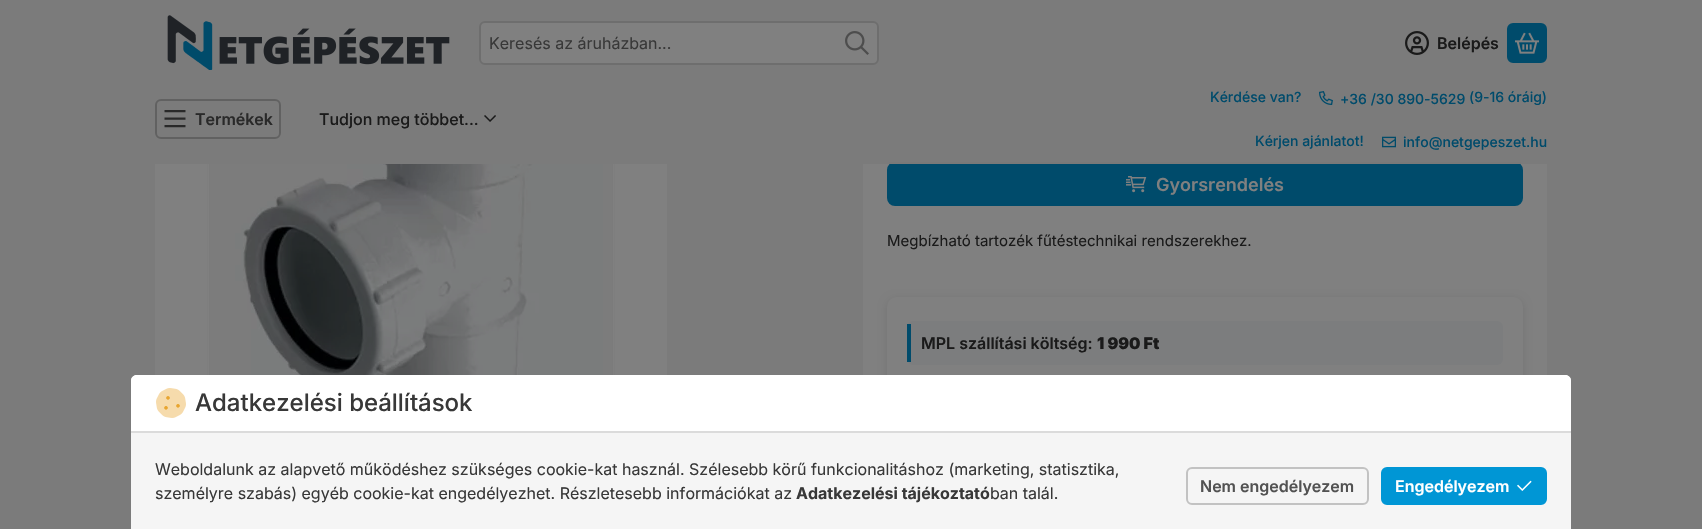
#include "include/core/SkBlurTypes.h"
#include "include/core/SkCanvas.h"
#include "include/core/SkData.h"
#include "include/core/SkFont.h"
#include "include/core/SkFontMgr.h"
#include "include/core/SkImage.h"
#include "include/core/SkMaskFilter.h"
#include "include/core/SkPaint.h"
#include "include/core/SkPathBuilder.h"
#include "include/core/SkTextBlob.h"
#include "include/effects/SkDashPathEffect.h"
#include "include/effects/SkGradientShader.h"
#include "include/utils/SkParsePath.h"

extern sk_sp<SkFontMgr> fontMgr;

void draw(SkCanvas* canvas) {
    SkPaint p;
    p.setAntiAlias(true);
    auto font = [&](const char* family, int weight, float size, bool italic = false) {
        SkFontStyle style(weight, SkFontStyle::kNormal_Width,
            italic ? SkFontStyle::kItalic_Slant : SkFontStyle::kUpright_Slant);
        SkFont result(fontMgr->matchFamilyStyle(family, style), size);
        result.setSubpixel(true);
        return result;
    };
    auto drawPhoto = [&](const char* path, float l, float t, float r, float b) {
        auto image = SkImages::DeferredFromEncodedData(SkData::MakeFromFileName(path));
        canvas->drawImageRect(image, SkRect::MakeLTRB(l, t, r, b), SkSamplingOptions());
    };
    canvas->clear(0xFF7B7B7B);
    drawPhoto("media/1.png", 167, 15, 450, 70);
    p.setColor(0xFF808080);
    canvas->drawRoundRect(SkRect::MakeLTRB(480, 22, 878, 64), 5, 5, p);
    p.setStyle(SkPaint::kStroke_Style);
    p.setStrokeWidth(2);
    p.setColor(0xFF6E6E6E);
    canvas->drawRoundRect(SkRect::MakeLTRB(480, 22, 878, 64), 5, 5, p);
    auto font1 = font("Inter", 400, 16);
    p.setStyle(SkPaint::kFill_Style);
    p.setColor(0xFF383838);
    canvas->drawString("Keresés az áruházban...", 489, 49, font1, p);
    drawPhoto("media/2.png", 845, 31, 869, 55);
    drawPhoto("media/3.png", 1405, 31, 1429, 55);
    auto font2 = font("Inter", 600, 16);
    p.setColor(0xFF1A1A1A);
    canvas->drawString("Belépés", 1437, 49, font2, p);
    p.setColor(0xFF004B6B);
    canvas->drawRoundRect(SkRect::MakeLTRB(1508, 24, 1546, 62), 5, 5, p);
    p.setStyle(SkPaint::kStroke_Style);
    canvas->drawRoundRect(SkRect::MakeLTRB(1508, 24, 1546, 62), 5, 5, p);
    drawPhoto("media/4.png", 1515, 32, 1539, 54);
    p.setColor(0xFF616161);
    canvas->drawRoundRect(SkRect::MakeLTRB(156, 100, 280, 138), 5, 5, p);
    drawPhoto("media/5.png", 164, 110, 186, 128);
    p.setStyle(SkPaint::kFill_Style);
    p.setColor(0xFF292929);
    canvas->drawString("Termékek", 195, 125, font2, p);
    auto font3 = font("Inter", 500, 16);
    p.setColor(0xFF1A1A1A);
    canvas->drawString("Tudjon meg többet...", 319, 125, font3, p);
    drawPhoto("media/6.png", 484, 115, 496, 122);
    auto font4 = font("Inter", 500, 14);
    p.setColor(0xFF004B6B);
    canvas->drawString("Kérdése van?", 1210, 102, font4, p);
    drawPhoto("media/7.png", 1319, 91, 1333, 105);
    {
        const struct { const char* s; float x, y; } items[] = {
            {"+36 /30 890-5629", 1340, 104},
            {"(9-16 óráig)", 1469, 102},
            {"Kérjen ajánlatot!", 1255, 146},
        };
        for (auto [s, x, y] : items) {
            canvas->drawString(s, x, y, font4, p);
        }
    }
    drawPhoto("media/8.png", 1382, 136, 1396, 148);
    canvas->drawString("info@netgepeszet.hu", 1403, 147, font4, p);
    p.setColor(0xFF808080);
    canvas->drawRect(SkRect::MakeLTRB(863, 164, 1547, 375), p);
    p.setColor(0xFF004B6B);
    canvas->drawRoundRect(SkRect::MakeLTRB(888, 163, 1522, 205), 7, 7, p);
    p.setStyle(SkPaint::kStroke_Style);
    canvas->drawRoundRect(SkRect::MakeLTRB(888, 163, 1522, 205), 7, 7, p);
    p.setStyle(SkPaint::kFill_Style);
    p.setColor(0xFF797979);
    canvas->drawRect(SkRect::MakeLTRB(889, 162, 1521, 164), p);
    drawPhoto("media/9.png", 155, 164, 667, 375);
    drawPhoto("media/10.png", 1126, 176, 1147, 193);
    auto font5 = font("Inter", 600, 18);
    p.setColor(0xFF808080);
    canvas->drawString("Gyorsrendelés", 1156, 191, font5, p);
    auto font6 = font("Inter", 400, 15);
    p.setColor(0xFF1A1A1A);
    canvas->drawString("Megbízható tartozék fűtéstechnikai rendszerekhez.", 887, 246, font6, p);
    p.setColor(0x1A000000);
    p.setMaskFilter(SkMaskFilter::MakeBlur(kNormal_SkBlurStyle, 4));
    canvas->drawRoundRect(SkRect::MakeLTRB(887, 299, 1523, 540), 10, 10, p);
    p.setMaskFilter(nullptr);
    p.setColor(0xFF808080);
    canvas->drawRoundRect(SkRect::MakeLTRB(887, 297, 1523, 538), 10, 10, p);
    p.setColor(0xFF7C7D7E);
    canvas->drawRoundRect(SkRect::MakeLTRB(907, 321, 1503, 365), 6, 6, p);
    p.setColor(0xFF004B6B);
    canvas->drawRect(SkRect::MakeLTRB(907, 324, 911, 362), p);
    p.setColor(0xFF1A1A1A);
    canvas->drawString("MPL szállítási költség:", 921, 349, font2, p);
    auto font7 = font("Inter", 900, 16);
    canvas->drawString("1 990 Ft", 1097, 349, font7, p);
    p.setColor(0xFFF5F5F5);
    canvas->drawPath(SkPathBuilder().moveTo(137, 375).lineTo(1565, 375).cubicTo(1568.5f, 375, 1571, 377.5f, 1571, 381).lineTo(1571, 529).lineTo(131, 529).lineTo(131, 381).cubicTo(131, 377.5f, 133.5f, 375, 137, 375).close().detach(), p);
    p.setColor(0xFFFFFFFF);
    canvas->drawPath(SkPathBuilder().moveTo(137, 375).lineTo(1565, 375).cubicTo(1568.5f, 375, 1571, 377.5f, 1571, 381).lineTo(1571, 433).lineTo(131, 433).lineTo(131, 381).cubicTo(131, 377.5f, 133.5f, 375, 137, 375).close().detach(), p);
    p.setColor(0xFFDBDBDB);
    canvas->drawRect(SkRect::MakeLTRB(131, 431, 1571, 433), p);
    drawPhoto("media/11.png", 156, 388, 186, 418);
    auto font8 = font("Inter", 500, 24);
    p.setColor(0xFF383838);
    canvas->drawString("Adatkezelési beállítások", 195, 411, font8, p);
    canvas->drawString("Weboldalunk az alapvető működéshez szükséges cookie-kat használ. Szélesebb körű funkcionalitáshoz (marketing, statisztika,", 155, 475, font1, p);
    canvas->drawString("személyre szabás) egyéb cookie-kat engedélyezhet. Részletesebb információkat az", 155, 499, font1, p);
    auto font9 = font("Inter", 700, 16);
    canvas->drawString("Adatkezelési tájékoztató", 796, 499, font9, p);
    canvas->drawString("ban talál.", 990, 499, font1, p);
    p.setStyle(SkPaint::kStroke_Style);
    p.setColor(0xFFC2C2C2);
    canvas->drawRoundRect(SkRect::MakeLTRB(1187, 468, 1368, 504), 5, 5, p);
    p.setStyle(SkPaint::kFill_Style);
    p.setColor(0xFF525252);
    canvas->drawString("Nem engedélyezem", 1200, 492, font2, p);
    p.setColor(0xFF0096D5);
    canvas->drawRoundRect(SkRect::MakeLTRB(1382, 468, 1546, 504), 5, 5, p);
    p.setStyle(SkPaint::kStroke_Style);
    canvas->drawRoundRect(SkRect::MakeLTRB(1382, 468, 1546, 504), 5, 5, p);
    p.setStyle(SkPaint::kFill_Style);
    p.setColor(0xFFFFFFFF);
    canvas->drawString("Engedélyezem", 1395, 492, font2, p);
    drawPhoto("media/12.png", 1517, 480, 1532, 491);
}
